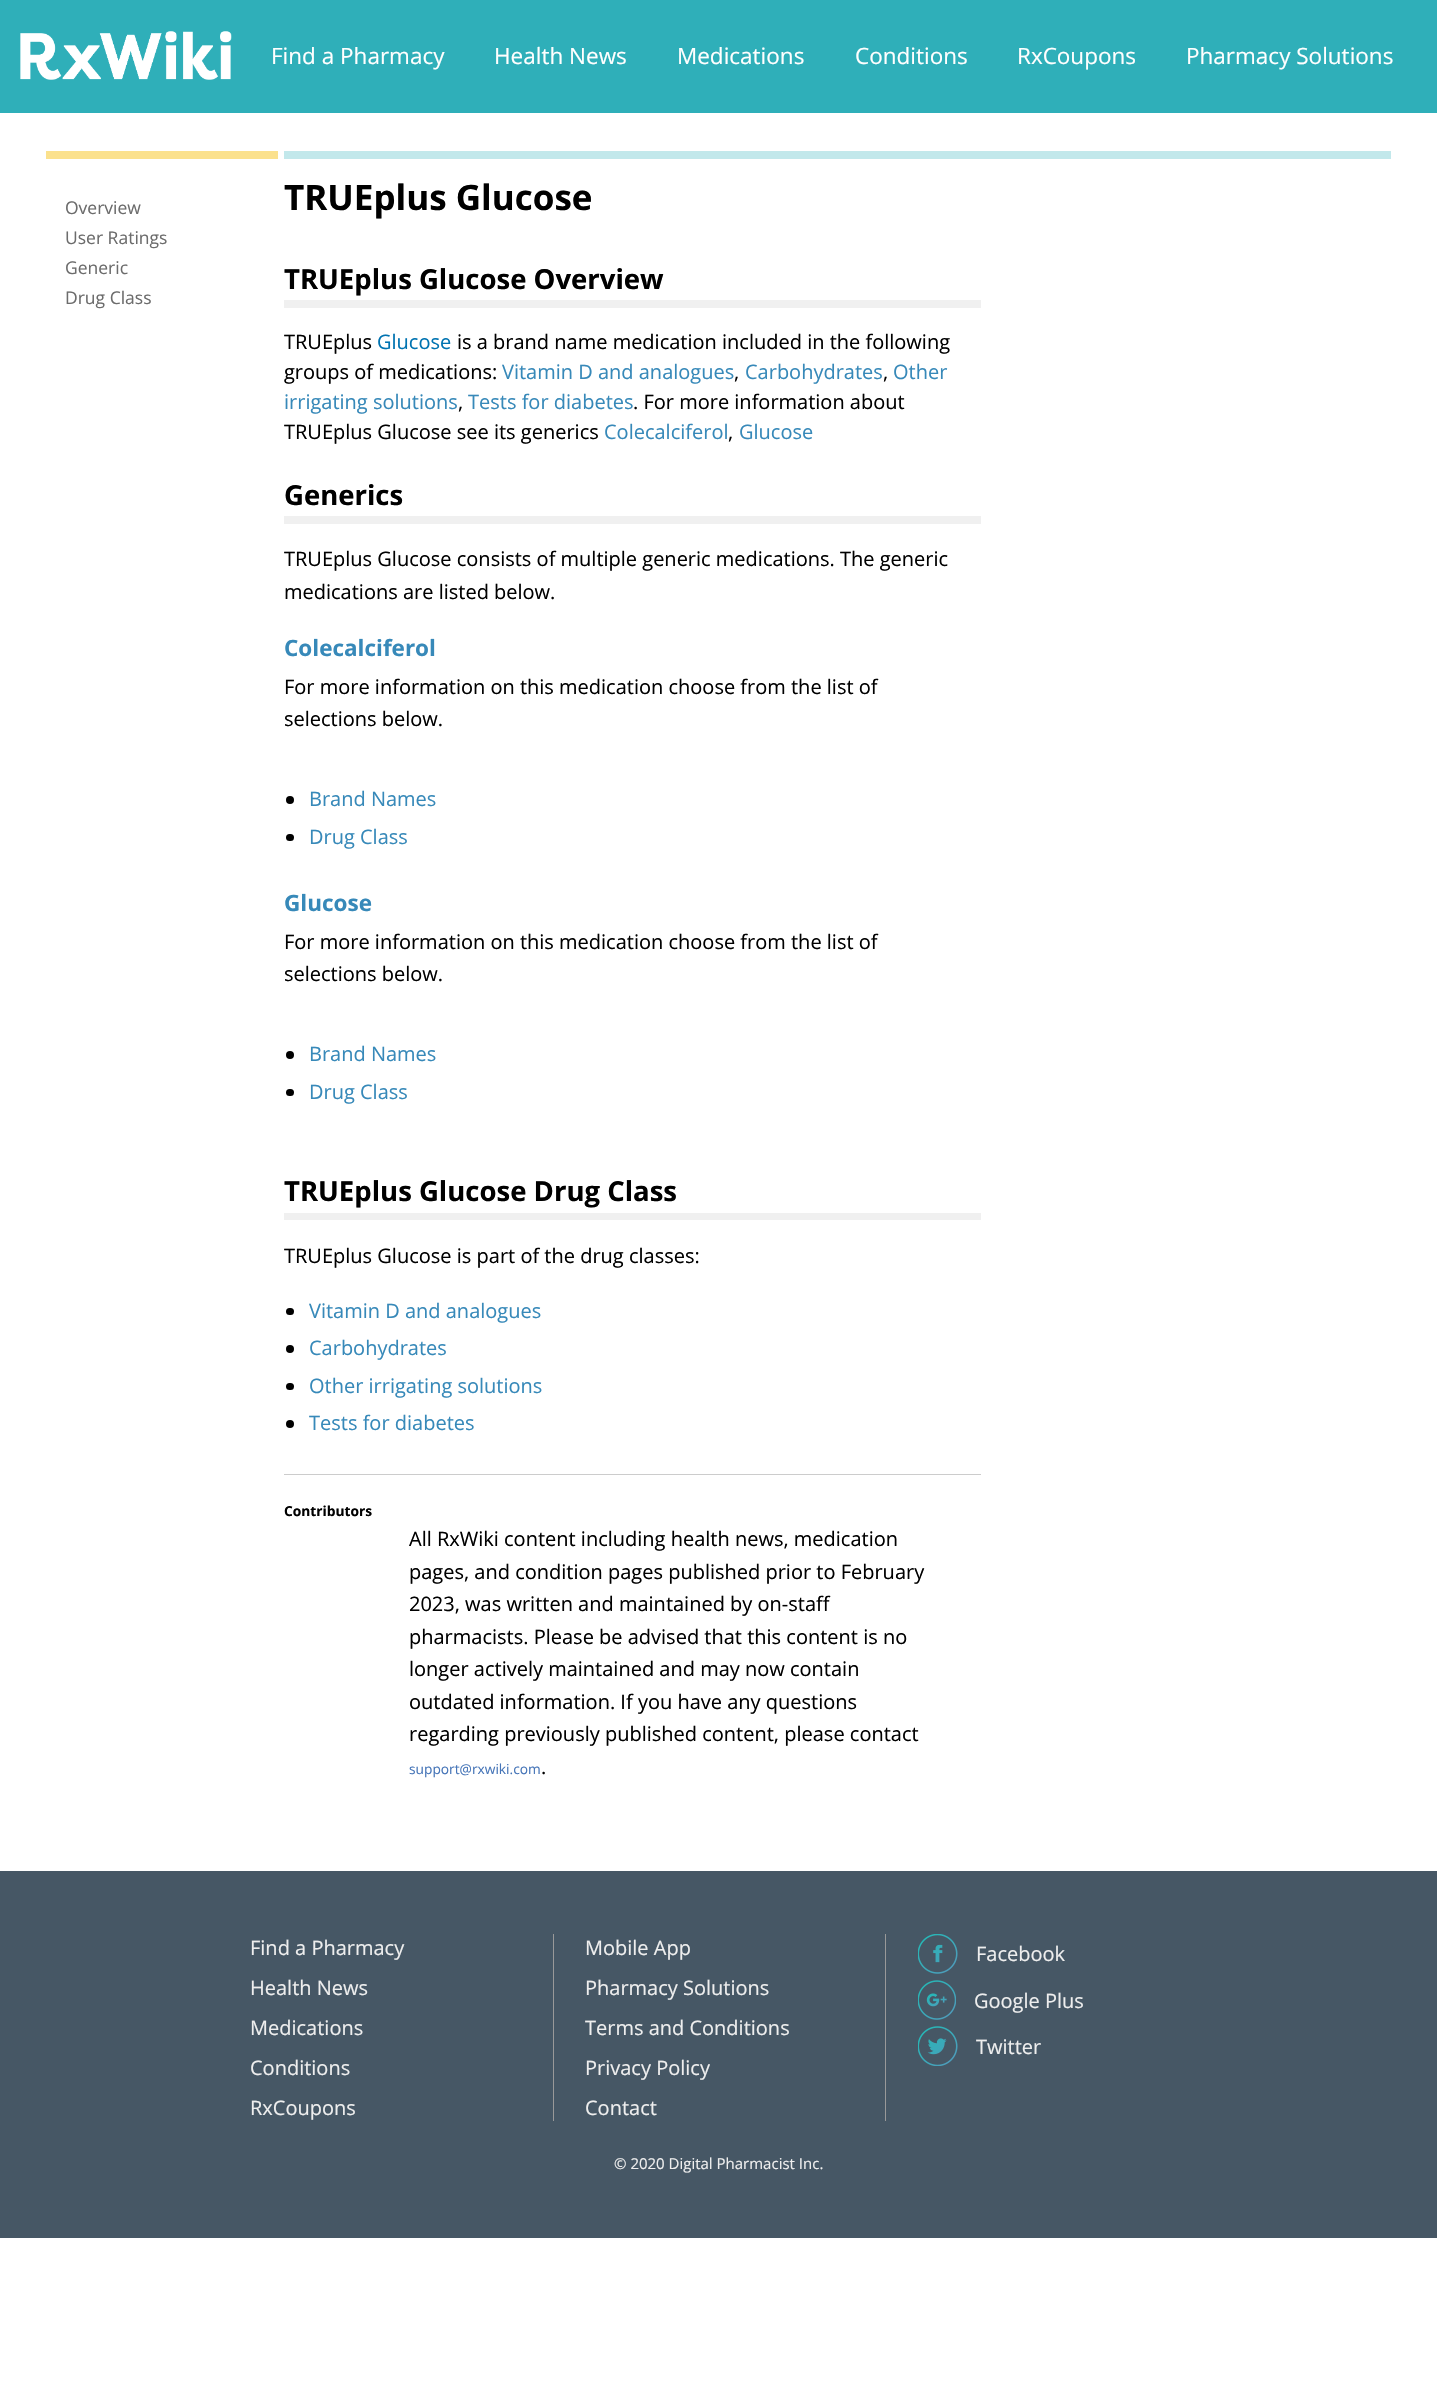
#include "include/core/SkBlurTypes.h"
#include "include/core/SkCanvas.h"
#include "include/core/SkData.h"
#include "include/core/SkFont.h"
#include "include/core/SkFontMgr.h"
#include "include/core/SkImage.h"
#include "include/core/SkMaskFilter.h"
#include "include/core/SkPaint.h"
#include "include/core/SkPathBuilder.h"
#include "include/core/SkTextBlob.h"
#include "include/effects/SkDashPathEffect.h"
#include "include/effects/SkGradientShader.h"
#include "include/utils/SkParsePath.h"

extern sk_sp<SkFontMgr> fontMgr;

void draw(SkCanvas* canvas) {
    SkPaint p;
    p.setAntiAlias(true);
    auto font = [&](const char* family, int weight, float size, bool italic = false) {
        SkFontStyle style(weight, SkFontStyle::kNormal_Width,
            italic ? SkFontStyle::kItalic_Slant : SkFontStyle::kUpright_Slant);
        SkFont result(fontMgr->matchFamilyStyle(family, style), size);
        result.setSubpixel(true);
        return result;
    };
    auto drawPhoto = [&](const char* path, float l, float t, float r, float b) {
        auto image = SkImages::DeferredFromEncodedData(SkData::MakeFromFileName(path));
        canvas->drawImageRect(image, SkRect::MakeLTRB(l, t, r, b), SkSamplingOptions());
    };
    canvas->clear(0xFFFFFFFF);
    p.setColor(0xFF2FAFB9);
    canvas->drawRect(SkRect::MakeLTRB(0, 0, 1437, 113), p);
    drawPhoto("media/1.png", 20, 31, 232, 80);
    auto font1 = font("Open Sans", 400, 22.5f);
    p.setColor(0xFFFFFFFF);
    {
        const struct { const char* s; float x, y; } items[] = {
            {"Find a Pharmacy", 271, 64},
            {"Health News", 494, 64},
            {"Medications", 677, 64},
            {"Conditions", 855, 64},
            {"RxCoupons", 1017, 64},
            {"Pharmacy Solutions", 1186, 64},
        };
        for (auto [s, x, y] : items) {
            canvas->drawString(s, x, y, font1, p);
        }
    }
    p.setColor(0xFFFBE18D);
    canvas->drawRect(SkRect::MakeLTRB(46, 151, 278, 159), p);
    p.setColor(0xFFC2E8EB);
    canvas->drawRect(SkRect::MakeLTRB(284, 151, 1391, 159), p);
    auto font2 = font("Open Sans", 400, 17.5f);
    p.setColor(0xFF6C6C6C);
    {
        const struct { const char* s; float x, y; } items[] = {
            {"Overview", 65, 214},
            {"User Ratings", 65, 244},
            {"Generic", 65, 274},
            {"Drug Class", 65, 304},
        };
        for (auto [s, x, y] : items) {
            canvas->drawString(s, x, y, font2, p);
        }
    }
    auto font3 = font("Open Sans", 700, 35);
    p.setColor(0xFF000000);
    canvas->drawString("TRUEplus Glucose", 284, 210, font3, p);
    p.setColor(0xFFF0F0F0);
    canvas->drawRect(SkRect::MakeLTRB(284, 300, 981, 308), p);
    auto font4 = font("Open Sans", 700, 27.5f);
    p.setColor(0xFF000000);
    canvas->drawString("TRUEplus Glucose Overview", 284, 289, font4, p);
    auto font5 = font("Open Sans", 400, 20);
    canvas->drawString("TRUEplus", 284, 349, font5, p);
    p.setColor(0xFF0073B1);
    canvas->drawString("Glucose", 377, 349, font5, p);
    p.setColor(0xFF000000);
    canvas->drawString("is a brand name medication included in the following", 457, 349, font5, p);
    canvas->drawString("groups of medications:", 284, 379, font5, p);
    p.setColor(0xFF3789B9);
    canvas->drawString("Vitamin D and analogues", 502, 379, font5, p);
    p.setColor(0xFF000000);
    canvas->drawString(",", 734, 379, font5, p);
    p.setColor(0xFF3789B9);
    canvas->drawString("Carbohydrates", 745, 379, font5, p);
    p.setColor(0xFF000000);
    canvas->drawString(",", 883, 379, font5, p);
    p.setColor(0xFF3789B9);
    canvas->drawString("Other", 893, 379, font5, p);
    canvas->drawString("irrigating solutions", 284, 409, font5, p);
    p.setColor(0xFF000000);
    canvas->drawString(",", 458, 409, font5, p);
    p.setColor(0xFF3789B9);
    canvas->drawString("Tests for diabetes", 468, 409, font5, p);
    p.setColor(0xFF000000);
    canvas->drawString(". For more information about", 633, 409, font5, p);
    canvas->drawString("TRUEplus Glucose see its generics", 284, 439, font5, p);
    p.setColor(0xFF3789B9);
    canvas->drawString("Colecalciferol", 604, 439, font5, p);
    p.setColor(0xFF000000);
    canvas->drawString(",", 728, 439, font5, p);
    p.setColor(0xFF3789B9);
    canvas->drawString("Glucose", 739, 439, font5, p);
    p.setColor(0xFFF0F0F0);
    canvas->drawRect(SkRect::MakeLTRB(284, 516, 981, 524), p);
    p.setColor(0xFF000000);
    canvas->drawString("Generics", 284, 505, font4, p);
    canvas->drawString("TRUEplus Glucose consists of multiple generic medications. The generic", 284, 566, font5, p);
    canvas->drawString("medications are listed below.", 284, 599, font5, p);
    auto font6 = font("Open Sans", 700, 22.5f);
    p.setColor(0xFF3789B9);
    canvas->drawString("Colecalciferol", 284, 656, font6, p);
    p.setColor(0xFF000000);
    canvas->drawString("For more information on this medication choose from the list of", 284, 694, font5, p);
    canvas->drawString("selections below.", 284, 726, font5, p);
    canvas->drawCircle(290, 800, 4, p);
    p.setColor(0xFF3789B9);
    canvas->drawString("Brand Names", 309, 806, font5, p);
    p.setColor(0xFF000000);
    canvas->drawRoundRect(SkRect::MakeLTRB(286, 834, 294, 841), 3.5f, 3.5f, p);
    p.setColor(0xFF3789B9);
    canvas->drawString("Drug Class", 309, 844, font5, p);
    canvas->drawString("Glucose", 284, 911, font6, p);
    p.setColor(0xFF000000);
    canvas->drawString("For more information on this medication choose from the list of", 284, 949, font5, p);
    canvas->drawString("selections below.", 284, 981, font5, p);
    canvas->drawCircle(290, 1055, 4, p);
    p.setColor(0xFF3789B9);
    canvas->drawString("Brand Names", 309, 1061, font5, p);
    p.setColor(0xFF000000);
    canvas->drawRoundRect(SkRect::MakeLTRB(286, 1089, 294, 1096), 3.5f, 3.5f, p);
    p.setColor(0xFF3789B9);
    canvas->drawString("Drug Class", 309, 1099, font5, p);
    p.setColor(0xFFF0F0F0);
    canvas->drawRect(SkRect::MakeLTRB(284, 1213, 981, 1220), p);
    p.setColor(0xFF000000);
    canvas->drawString("TRUEplus Glucose Drug Class", 284, 1201, font4, p);
    canvas->drawString("TRUEplus Glucose is part of the drug classes:", 284, 1263, font5, p);
    canvas->drawRoundRect(SkRect::MakeLTRB(286, 1308, 294, 1315), 3.5f, 3.5f, p);
    p.setColor(0xFF3789B9);
    canvas->drawString("Vitamin D and analogues", 309, 1318, font5, p);
    p.setColor(0xFF000000);
    canvas->drawCircle(290, 1349, 4, p);
    p.setColor(0xFF3789B9);
    canvas->drawString("Carbohydrates", 309, 1355, font5, p);
    p.setColor(0xFF000000);
    canvas->drawRoundRect(SkRect::MakeLTRB(286, 1383, 294, 1390), 3.5f, 3.5f, p);
    p.setColor(0xFF3789B9);
    canvas->drawString("Other irrigating solutions", 309, 1393, font5, p);
    p.setColor(0xFF000000);
    canvas->drawCircle(290, 1424, 4, p);
    p.setColor(0xFF3789B9);
    canvas->drawString("Tests for diabetes", 309, 1430, font5, p);
    p.setColor(0xFFCCCCCC);
    canvas->drawRect(SkRect::MakeLTRB(284, 1474, 981, 1475), p);
    auto font7 = font("Open Sans", 700, 13.75f);
    p.setColor(0xFF000000);
    canvas->drawString("Contributors", 284, 1516, font7, p);
    {
        const struct { const char* s; float x, y; } items[] = {
            {"All RxWiki content including health news, medication", 409, 1546},
            {"pages, and condition pages published prior to February", 409, 1579},
            {"2023, was written and maintained by on-staff", 409, 1611},
            {"pharmacists. Please be advised that this content is no", 409, 1644},
            {"longer actively maintained and may now contain", 409, 1676},
            {"outdated information. If you have any questions", 409, 1709},
            {"regarding previously published content, please contact", 409, 1741},
        };
        for (auto [s, x, y] : items) {
            canvas->drawString(s, x, y, font5, p);
        }
    }
    auto font8 = font("Open Sans", 400, 13.75f);
    p.setColor(0xFF4675B8);
    canvas->drawString("support@rxwiki.com", 409, 1774, font8, p);
    p.setColor(0xFF000000);
    canvas->drawString(".", 541, 1774, font5, p);
    p.setColor(0xFF465765);
    canvas->drawRect(SkRect::MakeLTRB(0, 1871, 1437, 2238), p);
    p.setColor(0xFFEEEEEE);
    {
        const struct { const char* s; float x, y; } items[] = {
            {"Find a Pharmacy", 250, 1955},
            {"Health News", 250, 1995},
            {"Medications", 250, 2035},
            {"Conditions", 250, 2075},
            {"RxCoupons", 250, 2115},
        };
        for (auto [s, x, y] : items) {
            canvas->drawString(s, x, y, font5, p);
        }
    }
    p.setColor(0xFF999999);
    canvas->drawRect(SkRect::MakeLTRB(553, 1934, 554, 2121), p);
    p.setColor(0xFFEEEEEE);
    {
        const struct { const char* s; float x, y; } items[] = {
            {"Mobile App", 585, 1955},
            {"Pharmacy Solutions", 585, 1995},
            {"Terms and Conditions", 585, 2035},
            {"Privacy Policy", 585, 2075},
            {"Contact", 585, 2115},
        };
        for (auto [s, x, y] : items) {
            canvas->drawString(s, x, y, font5, p);
        }
    }
    p.setColor(0xFF999999);
    canvas->drawRect(SkRect::MakeLTRB(885, 1934, 886, 2121), p);
    drawPhoto("media/2.png", 918, 1934, 958, 1974);
    p.setColor(0xFFEEEEEE);
    canvas->drawString("Facebook", 976, 1961, font5, p);
    drawPhoto("media/3.png", 918, 1980, 956, 2020);
    canvas->drawString("Google Plus", 974, 2008, font5, p);
    drawPhoto("media/4.png", 918, 2026, 958, 2066);
    canvas->drawString("Twitter", 976, 2054, font5, p);
    auto font9 = font("Open Sans", 400, 15);
    canvas->drawString("© 2020 Digital Pharmacist Inc.", 614, 2169, font9, p);
}
